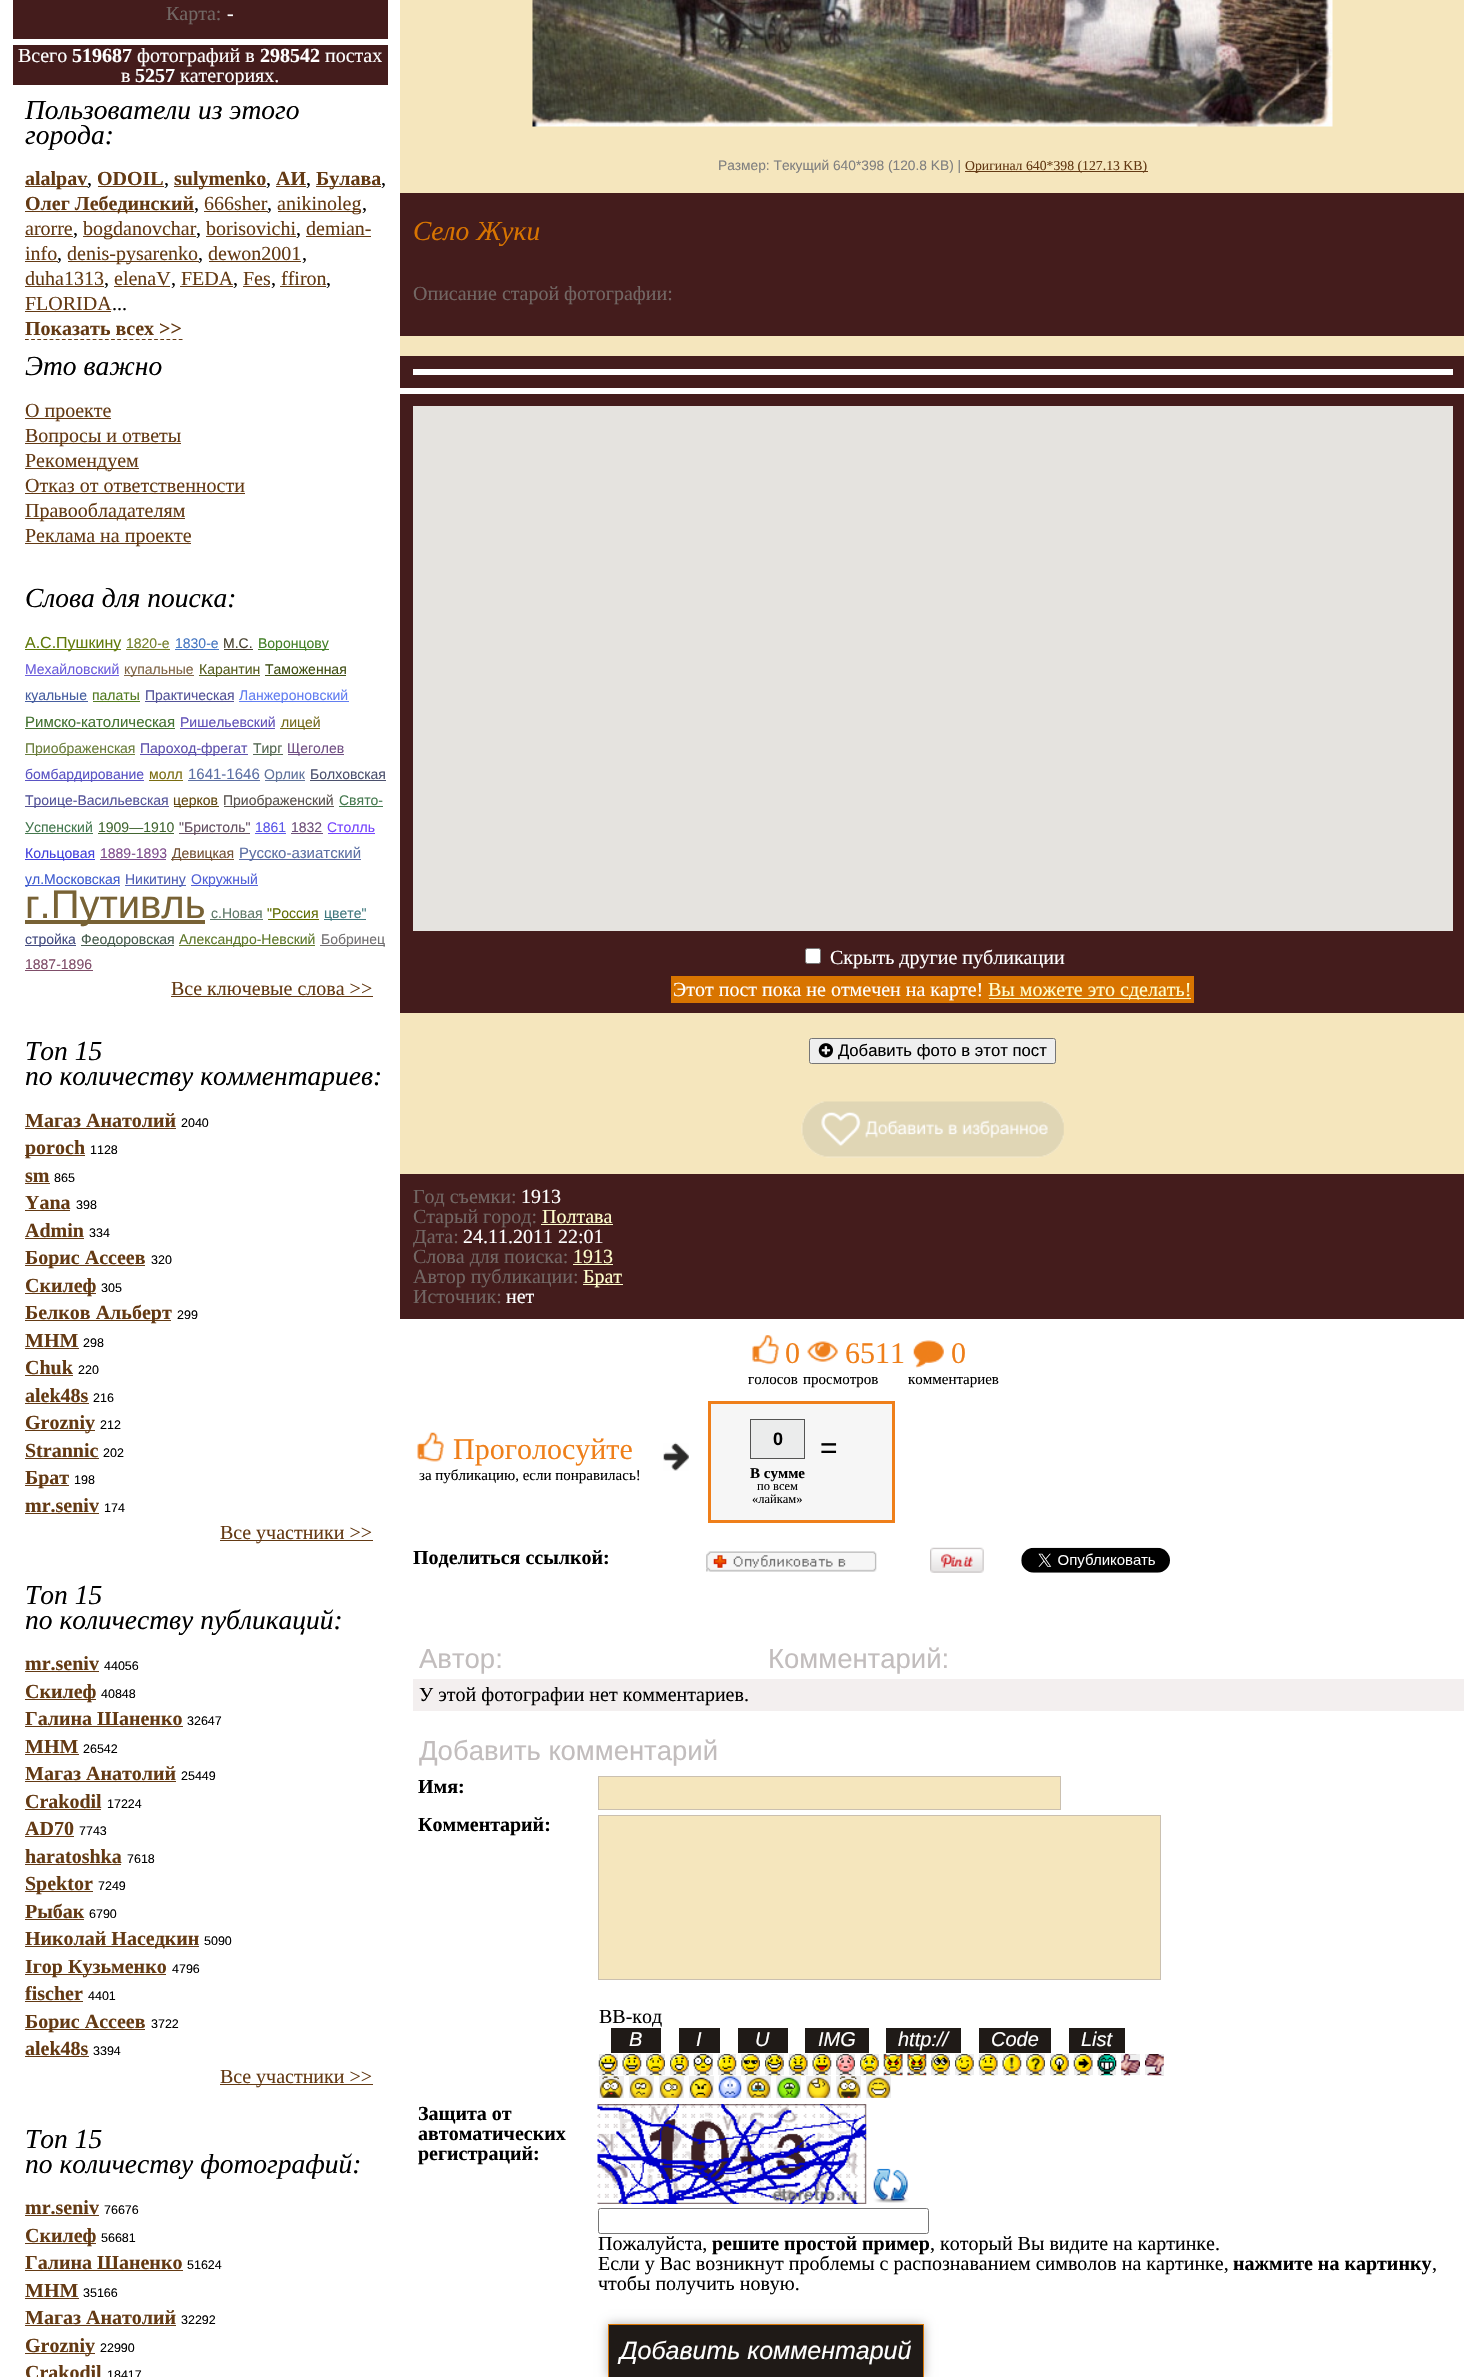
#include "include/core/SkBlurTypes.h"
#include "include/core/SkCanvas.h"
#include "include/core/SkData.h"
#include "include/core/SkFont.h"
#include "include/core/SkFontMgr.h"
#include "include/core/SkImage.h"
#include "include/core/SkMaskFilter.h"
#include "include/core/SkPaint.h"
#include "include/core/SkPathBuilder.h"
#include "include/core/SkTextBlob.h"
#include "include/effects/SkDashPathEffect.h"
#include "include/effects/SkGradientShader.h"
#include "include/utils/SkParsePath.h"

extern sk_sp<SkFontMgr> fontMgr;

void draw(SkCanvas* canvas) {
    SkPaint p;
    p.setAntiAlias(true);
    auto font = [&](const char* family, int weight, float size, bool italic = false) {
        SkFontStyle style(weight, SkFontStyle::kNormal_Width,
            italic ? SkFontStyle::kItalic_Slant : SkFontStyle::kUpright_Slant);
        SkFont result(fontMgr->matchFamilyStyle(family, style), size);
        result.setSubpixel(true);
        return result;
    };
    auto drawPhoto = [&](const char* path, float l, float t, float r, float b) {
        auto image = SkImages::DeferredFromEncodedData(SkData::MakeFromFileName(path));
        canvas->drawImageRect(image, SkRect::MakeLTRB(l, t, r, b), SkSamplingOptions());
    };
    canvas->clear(0xFFFFFFFF);
    p.setColor(0xFF441C1C);
    canvas->drawRect(SkRect::MakeLTRB(13, 0, 388, 85), p);
    auto font1 = font("Liberation Serif", 400, 20);
    p.setColor(0xFF726764);
    canvas->drawString("Карта:", 166, 20, font1, p);
    p.setColor(0xFFFFFFFF);
    canvas->drawString("-", 227, 20, font1, p);
    canvas->drawRect(SkRect::MakeLTRB(13, 39, 388, 45), p);
    canvas->drawString("Всего", 18, 62, font1, p);
    auto font2 = font("Liberation Serif", 700, 20);
    canvas->drawString("519687", 72, 62, font2, p);
    canvas->drawString("фотографий в", 137, 62, font1, p);
    canvas->drawString("298542", 260, 62, font2, p);
    canvas->drawString("постах", 325, 62, font1, p);
    canvas->drawString("в", 121, 82, font1, p);
    canvas->drawString("5257", 135, 82, font2, p);
    canvas->drawString("категориях.", 180, 82, font1, p);
    auto font3 = font("Liberation Serif", 400, 27.5f, true);
    p.setColor(0xFF000000);
    canvas->drawString("Пользователи из этого", 25, 119, font3, p);
    canvas->drawString("города:", 25, 144, font3, p);
    p.setColor(0xFF643A14);
    canvas->drawRect(SkRect::MakeLTRB(25, 186, 88, 187), p);
    canvas->drawString("alalpav", 25, 185, font2, p);
    p.setColor(0xFF000000);
    canvas->drawString(",", 87, 185, font1, p);
    p.setColor(0xFF643A14);
    canvas->drawString("ODOIL", 97, 185, font2, p);
    canvas->drawRect(SkRect::MakeLTRB(98, 186, 164, 187), p);
    p.setColor(0xFF000000);
    canvas->drawString(",", 164, 185, font1, p);
    p.setColor(0xFF643A14);
    canvas->drawRect(SkRect::MakeLTRB(174, 186, 266, 187), p);
    canvas->drawString("sulymenko", 174, 185, font2, p);
    p.setColor(0xFF000000);
    canvas->drawString(",", 266, 185, font1, p);
    p.setColor(0xFF643A14);
    canvas->drawString("АИ", 276, 185, font2, p);
    canvas->drawRect(SkRect::MakeLTRB(276, 186, 306, 187), p);
    p.setColor(0xFF000000);
    canvas->drawString(",", 306, 185, font1, p);
    p.setColor(0xFF643A14);
    canvas->drawRect(SkRect::MakeLTRB(316, 186, 381, 187), p);
    canvas->drawString("Булава", 316, 185, font2, p);
    p.setColor(0xFF000000);
    canvas->drawString(",", 381, 185, font1, p);
    p.setColor(0xFF643A14);
    canvas->drawRect(SkRect::MakeLTRB(25, 211, 194, 212), p);
    canvas->drawString("Олег Лебединский", 25, 210, font2, p);
    p.setColor(0xFF000000);
    canvas->drawString(",", 194, 210, font1, p);
    p.setColor(0xFF643A14);
    canvas->drawString("666sher", 204, 210, font1, p);
    canvas->drawRect(SkRect::MakeLTRB(204, 211, 268, 212), p);
    p.setColor(0xFF000000);
    canvas->drawString(",", 267, 210, font1, p);
    p.setColor(0xFF643A14);
    canvas->drawRect(SkRect::MakeLTRB(278, 211, 361, 212), p);
    canvas->drawString("anikinoleg", 277, 210, font1, p);
    p.setColor(0xFF000000);
    canvas->drawString(",", 362, 210, font1, p);
    p.setColor(0xFF643A14);
    canvas->drawString("arorre", 25, 235, font1, p);
    canvas->drawRect(SkRect::MakeLTRB(25, 236, 73, 237), p);
    p.setColor(0xFF000000);
    canvas->drawString(",", 73, 235, font1, p);
    p.setColor(0xFF643A14);
    canvas->drawRect(SkRect::MakeLTRB(83, 236, 196, 237), p);
    canvas->drawString("bogdanovchar", 83, 235, font1, p);
    p.setColor(0xFF000000);
    canvas->drawString(",", 196, 235, font1, p);
    p.setColor(0xFF643A14);
    canvas->drawString("borisovichi", 206, 235, font1, p);
    canvas->drawRect(SkRect::MakeLTRB(206, 236, 296, 237), p);
    p.setColor(0xFF000000);
    canvas->drawString(",", 296, 235, font1, p);
    p.setColor(0xFF643A14);
    canvas->drawString("demian-", 306, 235, font1, p);
    canvas->drawRect(SkRect::MakeLTRB(306, 236, 371, 237), p);
    canvas->drawString("info", 25, 260, font1, p);
    canvas->drawRect(SkRect::MakeLTRB(25, 261, 58, 262), p);
    p.setColor(0xFF000000);
    canvas->drawString(",", 57, 260, font1, p);
    p.setColor(0xFF643A14);
    canvas->drawRect(SkRect::MakeLTRB(68, 261, 199, 262), p);
    canvas->drawString("denis-pysarenko", 67, 260, font1, p);
    p.setColor(0xFF000000);
    canvas->drawString(",", 198, 260, font1, p);
    p.setColor(0xFF643A14);
    canvas->drawString("dewon2001", 208, 260, font1, p);
    canvas->drawRect(SkRect::MakeLTRB(209, 261, 301, 262), p);
    p.setColor(0xFF000000);
    canvas->drawString(",", 302, 260, font1, p);
    p.setColor(0xFF643A14);
    canvas->drawString("duha1313", 25, 285, font1, p);
    canvas->drawRect(SkRect::MakeLTRB(25, 286, 104, 287), p);
    p.setColor(0xFF000000);
    canvas->drawString(",", 104, 285, font1, p);
    p.setColor(0xFF643A14);
    canvas->drawString("elenaV", 114, 285, font1, p);
    canvas->drawRect(SkRect::MakeLTRB(114, 286, 170, 287), p);
    p.setColor(0xFF000000);
    canvas->drawString(",", 171, 285, font1, p);
    p.setColor(0xFF643A14);
    canvas->drawString("FEDA", 181, 285, font1, p);
    canvas->drawRect(SkRect::MakeLTRB(180, 286, 233, 287), p);
    p.setColor(0xFF000000);
    canvas->drawString(",", 233, 285, font1, p);
    p.setColor(0xFF643A14);
    canvas->drawString("Fes", 243, 285, font1, p);
    canvas->drawRect(SkRect::MakeLTRB(243, 286, 270, 287), p);
    p.setColor(0xFF000000);
    canvas->drawString(",", 271, 285, font1, p);
    p.setColor(0xFF643A14);
    canvas->drawString("ffiron", 281, 285, font1, p);
    canvas->drawRect(SkRect::MakeLTRB(280, 286, 326, 287), p);
    p.setColor(0xFF000000);
    canvas->drawString(",", 326, 285, font1, p);
    p.setColor(0xFF643A14);
    canvas->drawString("FLORIDA", 25, 310, font1, p);
    canvas->drawRect(SkRect::MakeLTRB(25, 311, 111, 312), p);
    p.setColor(0xFF000000);
    canvas->drawString("...", 112, 310, font1, p);
    p.setColor(0xFF643A14);
    canvas->drawString("Показать всех >>", 25, 335, font2, p);
    p.setStyle(SkPaint::kStroke_Style);
    p.setStrokeWidth(1.2f);
    p.setPathEffect(SkDashPathEffect::Make({{3.75f, 2.4f}}, 0));
    canvas->drawPath(SkPathBuilder().moveTo(25, 339.5f).lineTo(182.5f, 339.5f).detach(), p);
    p.setPathEffect(nullptr);
    p.setStyle(SkPaint::kFill_Style);
    p.setColor(0xFF000000);
    canvas->drawString("Это важно", 25, 375, font3, p);
    p.setColor(0xFF643A14);
    canvas->drawRect(SkRect::MakeLTRB(25, 418, 111, 419), p);
    canvas->drawString("О проекте", 25, 417, font1, p);
    canvas->drawRect(SkRect::MakeLTRB(25, 443, 181, 444), p);
    canvas->drawString("Вопросы и ответы", 25, 442, font1, p);
    canvas->drawRect(SkRect::MakeLTRB(25, 468, 139, 469), p);
    canvas->drawString("Рекомендуем", 25, 467, font1, p);
    canvas->drawString("Отказ от ответственности", 25, 492, font1, p);
    canvas->drawRect(SkRect::MakeLTRB(25, 493, 245, 494), p);
    canvas->drawRect(SkRect::MakeLTRB(25, 518, 185, 519), p);
    canvas->drawString("Правообладателям", 25, 517, font1, p);
    canvas->drawRect(SkRect::MakeLTRB(25, 543, 191, 544), p);
    canvas->drawString("Реклама на проекте", 25, 542, font1, p);
    p.setColor(0xFF000000);
    canvas->drawString("Слова для поиска:", 25, 607, font3, p);
    p.setColor(0xFF617B0B);
    canvas->drawRect(SkRect::MakeLTRB(25, 649, 121, 650), p);
    auto font4 = font("Liberation Sans", 400, 16);
    canvas->drawString("А.С.Пушкину", 25, 648, font4, p);
    auto font5 = font("Liberation Sans", 400, 14);
    p.setColor(0xFF747F2B);
    canvas->drawString("1820-е", 126, 648, font5, p);
    canvas->drawRect(SkRect::MakeLTRB(126, 649, 170, 650), p);
    p.setColor(0xFF4677C2);
    canvas->drawString("1830-е", 175, 648, font5, p);
    canvas->drawRect(SkRect::MakeLTRB(175, 649, 219, 650), p);
    p.setColor(0xFF47412F);
    canvas->drawString("М.С.", 223, 648, font5, p);
    canvas->drawRect(SkRect::MakeLTRB(224, 649, 253, 650), p);
    p.setColor(0xFF428027);
    canvas->drawRect(SkRect::MakeLTRB(258, 649, 329, 650), p);
    canvas->drawString("Воронцову", 258, 648, font5, p);
    p.setColor(0xFF6C5EDC);
    canvas->drawString("Мехайловский", 25, 674, font5, p);
    canvas->drawRect(SkRect::MakeLTRB(25, 675, 119, 676), p);
    p.setColor(0xFF806546);
    canvas->drawRect(SkRect::MakeLTRB(124, 675, 194, 676), p);
    canvas->drawString("купальные", 124, 674, font5, p);
    p.setColor(0xFF565E1F);
    canvas->drawRect(SkRect::MakeLTRB(199, 675, 260, 676), p);
    canvas->drawString("Карантин", 199, 674, font5, p);
    p.setColor(0xFF404E13);
    canvas->drawString("Таможенная", 265, 674, font5, p);
    canvas->drawRect(SkRect::MakeLTRB(265, 675, 346, 676), p);
    p.setColor(0xFF465EA0);
    canvas->drawRect(SkRect::MakeLTRB(25, 701, 88, 702), p);
    canvas->drawString("куальные", 25, 700, font5, p);
    p.setColor(0xFF537B21);
    canvas->drawString("палаты", 92, 700, font5, p);
    canvas->drawRect(SkRect::MakeLTRB(93, 701, 140, 702), p);
    p.setColor(0xFF545499);
    canvas->drawRect(SkRect::MakeLTRB(145, 701, 234, 702), p);
    canvas->drawString("Практическая", 145, 700, font5, p);
    p.setColor(0xFF627EF1);
    canvas->drawRect(SkRect::MakeLTRB(239, 701, 349, 702), p);
    canvas->drawString("Ланжероновский", 239, 700, font5, p);
    auto font6 = font("Liberation Sans", 400, 15);
    p.setColor(0xFF447332);
    canvas->drawString("Римско-католическая", 25, 727, font6, p);
    canvas->drawRect(SkRect::MakeLTRB(25, 728, 175, 729), p);
    p.setColor(0xFF6251B8);
    canvas->drawString("Ришельевский", 180, 727, font5, p);
    canvas->drawRect(SkRect::MakeLTRB(180, 728, 275, 729), p);
    p.setColor(0xFF746A1C);
    canvas->drawRect(SkRect::MakeLTRB(280, 728, 320, 729), p);
    canvas->drawString("лицей", 281, 727, font5, p);
    p.setColor(0xFF6A7D3B);
    canvas->drawRect(SkRect::MakeLTRB(25, 754, 135, 755), p);
    canvas->drawString("Приображенская", 25, 753, font5, p);
    p.setColor(0xFF5D51AD);
    canvas->drawRect(SkRect::MakeLTRB(140, 754, 248, 755), p);
    canvas->drawString("Пароход-фрегат", 140, 753, font5, p);
    p.setColor(0xFF536751);
    canvas->drawRect(SkRect::MakeLTRB(253, 754, 283, 755), p);
    canvas->drawString("Тирг", 253, 753, font5, p);
    p.setColor(0xFF715084);
    canvas->drawRect(SkRect::MakeLTRB(288, 754, 344, 755), p);
    canvas->drawString("Щеголев", 287, 753, font5, p);
    p.setColor(0xFF5A54C4);
    canvas->drawRect(SkRect::MakeLTRB(25, 780, 144, 781), p);
    canvas->drawString("бомбардирование", 25, 779, font5, p);
    p.setColor(0xFF7A6C11);
    canvas->drawString("молл", 149, 779, font5, p);
    canvas->drawRect(SkRect::MakeLTRB(149, 780, 183, 781), p);
    p.setColor(0xFF5D70A4);
    canvas->drawString("1641-1646", 188, 779, font6, p);
    canvas->drawRect(SkRect::MakeLTRB(188, 780, 260, 781), p);
    p.setColor(0xFF5F729A);
    canvas->drawRect(SkRect::MakeLTRB(265, 780, 305, 781), p);
    canvas->drawString("Орлик", 264, 779, font5, p);
    p.setColor(0xFF4B506D);
    canvas->drawString("Болховская", 310, 779, font5, p);
    canvas->drawRect(SkRect::MakeLTRB(310, 780, 386, 781), p);
    p.setColor(0xFF565294);
    canvas->drawRect(SkRect::MakeLTRB(25, 806, 169, 807), p);
    p.setColor(0xFF545499);
    canvas->drawString("Троице-Васильевская", 25, 805, font5, p);
    p.setColor(0xFF614710);
    canvas->drawRect(SkRect::MakeLTRB(174, 806, 219, 807), p);
    canvas->drawString("церков", 173, 805, font5, p);
    p.setColor(0xFF59524E);
    canvas->drawRect(SkRect::MakeLTRB(224, 806, 334, 807), p);
    canvas->drawString("Приображенский", 223, 805, font5, p);
    p.setColor(0xFF44784E);
    canvas->drawString("Свято-", 339, 805, font5, p);
    canvas->drawRect(SkRect::MakeLTRB(339, 806, 383, 807), p);
    canvas->drawString("Успенский", 25, 832, font5, p);
    canvas->drawRect(SkRect::MakeLTRB(25, 833, 93, 834), p);
    p.setColor(0xFF426632);
    canvas->drawString("1909—1910", 98, 832, font5, p);
    canvas->drawRect(SkRect::MakeLTRB(98, 833, 174, 834), p);
    p.setColor(0xFF634F61);
    canvas->drawRect(SkRect::MakeLTRB(179, 833, 250, 834), p);
    canvas->drawString("\"Бристоль\"", 179, 832, font5, p);
    p.setColor(0xFF5A56E9);
    canvas->drawString("1861", 255, 832, font5, p);
    canvas->drawRect(SkRect::MakeLTRB(255, 833, 286, 834), p);
    p.setColor(0xFF6D4F79);
    canvas->drawString("1832", 291, 832, font5, p);
    canvas->drawRect(SkRect::MakeLTRB(291, 833, 323, 834), p);
    p.setColor(0xFF7544FE);
    canvas->drawString("Столль", 327, 832, font5, p);
    canvas->drawRect(SkRect::MakeLTRB(328, 833, 375, 834), p);
    p.setColor(0xFF4240DD);
    canvas->drawRect(SkRect::MakeLTRB(25, 859, 95, 860), p);
    canvas->drawString("Кольцовая", 25, 858, font5, p);
    p.setColor(0xFF7F4E8D);
    canvas->drawString("1889-1893", 100, 858, font5, p);
    canvas->drawRect(SkRect::MakeLTRB(100, 859, 166, 860), p);
    p.setColor(0xFF745235);
    canvas->drawRect(SkRect::MakeLTRB(171, 859, 234, 860), p);
    canvas->drawString("Девицкая", 172, 858, font5, p);
    p.setColor(0xFF5B6BA3);
    canvas->drawRect(SkRect::MakeLTRB(239, 859, 361, 860), p);
    p.setColor(0xFF5D70A4);
    canvas->drawString("Русско-азиатский", 239, 858, font6, p);
    p.setColor(0xFF405DD0);
    canvas->drawRect(SkRect::MakeLTRB(25, 885, 120, 886), p);
    canvas->drawString("ул.Московская", 25, 884, font5, p);
    p.setColor(0xFF505FB4);
    canvas->drawRect(SkRect::MakeLTRB(125, 885, 186, 886), p);
    canvas->drawString("Никитину", 125, 884, font5, p);
    p.setColor(0xFF5160D7);
    canvas->drawRect(SkRect::MakeLTRB(191, 885, 258, 886), p);
    canvas->drawString("Окружный", 191, 884, font5, p);
    p.setColor(0xFF786235);
    canvas->drawRect(SkRect::MakeLTRB(25, 920, 205, 924), p);
    auto font7 = font("Liberation Sans", 400, 40);
    canvas->drawString("г.Путивль", 25, 918, font7, p);
    p.setColor(0xFF5D7767);
    canvas->drawString("с.Новая", 211, 918, font5, p);
    canvas->drawRect(SkRect::MakeLTRB(210, 919, 263, 920), p);
    p.setColor(0xFF616D03);
    canvas->drawString("\"Россия", 267, 918, font5, p);
    canvas->drawRect(SkRect::MakeLTRB(268, 919, 319, 920), p);
    p.setColor(0xFF417A7F);
    canvas->drawRect(SkRect::MakeLTRB(324, 919, 366, 920), p);
    canvas->drawString("цвете\"", 324, 918, font5, p);
    p.setColor(0xFF444C80);
    canvas->drawRect(SkRect::MakeLTRB(25, 945, 76, 946), p);
    canvas->drawString("стройка", 25, 944, font5, p);
    p.setColor(0xFF465C4D);
    canvas->drawRect(SkRect::MakeLTRB(81, 945, 174, 946), p);
    canvas->drawString("Феодоровская", 81, 944, font5, p);
    p.setColor(0xFF5F782B);
    canvas->drawRect(SkRect::MakeLTRB(179, 945, 315, 946), p);
    canvas->drawString("Александро-Невский", 179, 944, font5, p);
    p.setColor(0xFF737072);
    canvas->drawRect(SkRect::MakeLTRB(320, 945, 385, 946), p);
    canvas->drawString("Бобринец", 321, 944, font5, p);
    p.setColor(0xFF7F4D69);
    canvas->drawString("1887-1896", 25, 969, font5, p);
    canvas->drawRect(SkRect::MakeLTRB(25, 970, 93, 971), p);
    p.setColor(0xFF643A14);
    canvas->drawString("Все ключевые слова >>", 171, 995, font1, p);
    canvas->drawRect(SkRect::MakeLTRB(171, 996, 373, 997), p);
    p.setColor(0xFF000000);
    canvas->drawString("Топ 15", 25, 1060, font3, p);
    canvas->drawString("по количеству комментариев:", 25, 1085, font3, p);
    p.setColor(0xFF643A14);
    canvas->drawString("Магаз Анатолий", 25, 1127, font2, p);
    canvas->drawRect(SkRect::MakeLTRB(25, 1128, 176, 1129), p);
    auto font8 = font("Liberation Sans", 400, 12.5f);
    p.setColor(0xFF000000);
    canvas->drawString("2040", 181, 1127, font8, p);
    p.setColor(0xFF643A14);
    canvas->drawRect(SkRect::MakeLTRB(25, 1155, 85, 1156), p);
    canvas->drawString("poroch", 25, 1154, font2, p);
    p.setColor(0xFF000000);
    canvas->drawString("1128", 90, 1154, font8, p);
    p.setColor(0xFF643A14);
    canvas->drawString("sm", 25, 1182, font2, p);
    canvas->drawRect(SkRect::MakeLTRB(25, 1183, 50, 1184), p);
    p.setColor(0xFF000000);
    canvas->drawString("865", 54, 1182, font8, p);
    p.setColor(0xFF643A14);
    canvas->drawString("Yana", 25, 1209, font2, p);
    canvas->drawRect(SkRect::MakeLTRB(25, 1210, 70, 1211), p);
    p.setColor(0xFF000000);
    canvas->drawString("398", 76, 1209, font8, p);
    p.setColor(0xFF643A14);
    canvas->drawString("Admin", 25, 1237, font2, p);
    canvas->drawRect(SkRect::MakeLTRB(25, 1238, 84, 1239), p);
    p.setColor(0xFF000000);
    canvas->drawString("334", 89, 1237, font8, p);
    p.setColor(0xFF643A14);
    canvas->drawRect(SkRect::MakeLTRB(25, 1265, 145, 1266), p);
    canvas->drawString("Борис Ассеев", 25, 1264, font2, p);
    p.setColor(0xFF000000);
    canvas->drawString("320", 151, 1264, font8, p);
    p.setColor(0xFF643A14);
    canvas->drawRect(SkRect::MakeLTRB(25, 1293, 96, 1294), p);
    canvas->drawString("Скилеф", 25, 1292, font2, p);
    p.setColor(0xFF000000);
    canvas->drawString("305", 101, 1292, font8, p);
    p.setColor(0xFF643A14);
    canvas->drawRect(SkRect::MakeLTRB(25, 1320, 171, 1321), p);
    canvas->drawString("Белков Альберт", 25, 1319, font2, p);
    p.setColor(0xFF000000);
    canvas->drawString("299", 177, 1319, font8, p);
    p.setColor(0xFF643A14);
    canvas->drawString("МНМ", 25, 1347, font2, p);
    p.setColor(0xFF000000);
    canvas->drawString("298", 83, 1347, font8, p);
    p.setColor(0xFF643A14);
    canvas->drawRect(SkRect::MakeLTRB(25, 1348, 79, 1349), p);
    canvas->drawString("Chuk", 25, 1374, font2, p);
    canvas->drawRect(SkRect::MakeLTRB(25, 1375, 73, 1376), p);
    p.setColor(0xFF000000);
    canvas->drawString("220", 78, 1374, font8, p);
    p.setColor(0xFF643A14);
    canvas->drawString("alek48s", 25, 1402, font2, p);
    p.setColor(0xFF000000);
    canvas->drawString("216", 93, 1402, font8, p);
    p.setColor(0xFF643A14);
    canvas->drawRect(SkRect::MakeLTRB(25, 1403, 89, 1404), p);
    canvas->drawRect(SkRect::MakeLTRB(25, 1430, 95, 1431), p);
    canvas->drawString("Grozniy", 25, 1429, font2, p);
    p.setColor(0xFF000000);
    canvas->drawString("212", 100, 1429, font8, p);
    p.setColor(0xFF643A14);
    canvas->drawString("Strannic", 25, 1457, font2, p);
    p.setColor(0xFF000000);
    canvas->drawString("202", 103, 1457, font8, p);
    p.setColor(0xFF643A14);
    canvas->drawRect(SkRect::MakeLTRB(25, 1458, 99, 1459), p);
    canvas->drawRect(SkRect::MakeLTRB(25, 1485, 69, 1486), p);
    canvas->drawString("Брат", 25, 1484, font2, p);
    p.setColor(0xFF000000);
    canvas->drawString("198", 74, 1484, font8, p);
    p.setColor(0xFF643A14);
    canvas->drawString("mr.seniv", 25, 1512, font2, p);
    canvas->drawRect(SkRect::MakeLTRB(25, 1513, 99, 1514), p);
    p.setColor(0xFF000000);
    canvas->drawString("174", 104, 1512, font8, p);
    p.setColor(0xFF643A14);
    canvas->drawRect(SkRect::MakeLTRB(220, 1540, 373, 1541), p);
    canvas->drawString("Все участники >>", 220, 1539, font1, p);
    p.setColor(0xFF000000);
    canvas->drawString("Топ 15", 25, 1604, font3, p);
    canvas->drawString("по количеству публикаций:", 25, 1629, font3, p);
    p.setColor(0xFF643A14);
    canvas->drawString("mr.seniv", 25, 1670, font2, p);
    canvas->drawRect(SkRect::MakeLTRB(25, 1671, 99, 1672), p);
    p.setColor(0xFF000000);
    canvas->drawString("44056", 104, 1670, font8, p);
    p.setColor(0xFF643A14);
    canvas->drawRect(SkRect::MakeLTRB(25, 1699, 96, 1700), p);
    canvas->drawString("Скилеф", 25, 1698, font2, p);
    p.setColor(0xFF000000);
    canvas->drawString("40848", 101, 1698, font8, p);
    p.setColor(0xFF643A14);
    canvas->drawString("Галина Шаненко", 25, 1725, font2, p);
    p.setColor(0xFF000000);
    canvas->drawString("32647", 187, 1725, font8, p);
    p.setColor(0xFF643A14);
    canvas->drawRect(SkRect::MakeLTRB(25, 1726, 183, 1727), p);
    canvas->drawString("МНМ", 25, 1753, font2, p);
    p.setColor(0xFF000000);
    canvas->drawString("26542", 83, 1753, font8, p);
    p.setColor(0xFF643A14);
    canvas->drawRect(SkRect::MakeLTRB(25, 1754, 79, 1755), p);
    canvas->drawString("Магаз Анатолий", 25, 1780, font2, p);
    canvas->drawRect(SkRect::MakeLTRB(25, 1781, 176, 1782), p);
    p.setColor(0xFF000000);
    canvas->drawString("25449", 181, 1780, font8, p);
    p.setColor(0xFF643A14);
    canvas->drawString("Crakodil", 25, 1808, font2, p);
    canvas->drawRect(SkRect::MakeLTRB(25, 1809, 101, 1810), p);
    p.setColor(0xFF000000);
    canvas->drawString("17224", 107, 1808, font8, p);
    p.setColor(0xFF643A14);
    canvas->drawString("AD70", 25, 1835, font2, p);
    canvas->drawRect(SkRect::MakeLTRB(25, 1836, 74, 1837), p);
    p.setColor(0xFF000000);
    canvas->drawString("7743", 79, 1835, font8, p);
    p.setColor(0xFF643A14);
    canvas->drawString("haratoshka", 25, 1863, font2, p);
    canvas->drawRect(SkRect::MakeLTRB(25, 1864, 121, 1865), p);
    p.setColor(0xFF000000);
    canvas->drawString("7618", 127, 1863, font8, p);
    p.setColor(0xFF643A14);
    canvas->drawRect(SkRect::MakeLTRB(25, 1891, 93, 1892), p);
    canvas->drawString("Spektor", 25, 1890, font2, p);
    p.setColor(0xFF000000);
    canvas->drawString("7249", 98, 1890, font8, p);
    p.setColor(0xFF643A14);
    canvas->drawString("Рыбак", 25, 1918, font2, p);
    canvas->drawRect(SkRect::MakeLTRB(25, 1919, 84, 1920), p);
    p.setColor(0xFF000000);
    canvas->drawString("6790", 89, 1918, font8, p);
    p.setColor(0xFF643A14);
    canvas->drawRect(SkRect::MakeLTRB(25, 1946, 199, 1947), p);
    canvas->drawString("Николай Наседкин", 25, 1945, font2, p);
    p.setColor(0xFF000000);
    canvas->drawString("5090", 204, 1945, font8, p);
    p.setColor(0xFF643A14);
    canvas->drawRect(SkRect::MakeLTRB(25, 1974, 166, 1975), p);
    canvas->drawString("Ігор Кузьменко", 25, 1973, font2, p);
    p.setColor(0xFF000000);
    canvas->drawString("4796", 172, 1973, font8, p);
    p.setColor(0xFF643A14);
    canvas->drawString("fischer", 25, 2000, font2, p);
    p.setColor(0xFF000000);
    canvas->drawString("4401", 88, 2000, font8, p);
    p.setColor(0xFF643A14);
    canvas->drawRect(SkRect::MakeLTRB(25, 2001, 83, 2002), p);
    canvas->drawRect(SkRect::MakeLTRB(25, 2029, 145, 2030), p);
    canvas->drawString("Борис Ассеев", 25, 2028, font2, p);
    p.setColor(0xFF000000);
    canvas->drawString("3722", 151, 2028, font8, p);
    p.setColor(0xFF643A14);
    canvas->drawString("alek48s", 25, 2055, font2, p);
    p.setColor(0xFF000000);
    canvas->drawString("3394", 93, 2055, font8, p);
    p.setColor(0xFF643A14);
    canvas->drawRect(SkRect::MakeLTRB(25, 2056, 89, 2057), p);
    canvas->drawRect(SkRect::MakeLTRB(220, 2084, 373, 2085), p);
    canvas->drawString("Все участники >>", 220, 2083, font1, p);
    p.setColor(0xFF000000);
    canvas->drawString("Топ 15", 25, 2148, font3, p);
    canvas->drawString("по количеству фотографий:", 25, 2173, font3, p);
    p.setColor(0xFF643A14);
    canvas->drawString("mr.seniv", 25, 2214, font2, p);
    canvas->drawRect(SkRect::MakeLTRB(25, 2215, 99, 2216), p);
    p.setColor(0xFF000000);
    canvas->drawString("76676", 104, 2214, font8, p);
    p.setColor(0xFF643A14);
    canvas->drawRect(SkRect::MakeLTRB(25, 2243, 96, 2244), p);
    canvas->drawString("Скилеф", 25, 2242, font2, p);
    p.setColor(0xFF000000);
    canvas->drawString("56681", 101, 2242, font8, p);
    p.setColor(0xFF643A14);
    canvas->drawString("Галина Шаненко", 25, 2269, font2, p);
    canvas->drawRect(SkRect::MakeLTRB(25, 2270, 183, 2271), p);
    p.setColor(0xFF000000);
    canvas->drawString("51624", 187, 2269, font8, p);
    p.setColor(0xFF643A14);
    canvas->drawString("МНМ", 25, 2297, font2, p);
    canvas->drawRect(SkRect::MakeLTRB(25, 2298, 79, 2299), p);
    p.setColor(0xFF000000);
    canvas->drawString("35166", 83, 2297, font8, p);
    p.setColor(0xFF643A14);
    canvas->drawString("Магаз Анатолий", 25, 2324, font2, p);
    canvas->drawRect(SkRect::MakeLTRB(25, 2325, 176, 2326), p);
    p.setColor(0xFF000000);
    canvas->drawString("32292", 181, 2324, font8, p);
    p.setColor(0xFF643A14);
    canvas->drawRect(SkRect::MakeLTRB(25, 2353, 95, 2354), p);
    canvas->drawString("Grozniy", 25, 2352, font2, p);
    p.setColor(0xFF000000);
    canvas->drawString("22990", 100, 2352, font8, p);
    p.setColor(0xFF643A14);
    canvas->drawString("Crakodil", 25, 2379, font2, p);
    p.setColor(0xFF000000);
    canvas->drawString("18417", 107, 2379, font8, p);
    p.setColor(0xFFF5E6BD);
    canvas->drawRect(SkRect::MakeLTRB(400, 0, 1464, 1174), p);
    drawPhoto("media/1.png", 532, 0, 1333, 127);
    auto font9 = font("Liberation Sans", 400, 13.75f);
    p.setColor(0xFF808080);
    canvas->drawString("Размер: Текущий 640*398 (120.8 KB) |", 718, 170, font9, p);
    p.setColor(0xFF643A14);
    canvas->drawRect(SkRect::MakeLTRB(965, 171, 1148, 172), p);
    auto font10 = font("Liberation Serif", 400, 13.75f);
    canvas->drawString("Оригинал 640*398 (127.13 KB)", 965, 170, font10, p);
    p.setColor(0xFF441C1C);
    canvas->drawRect(SkRect::MakeLTRB(400, 193, 1464, 336), p);
    p.setColor(0xFFD87400);
    canvas->drawString("Село Жуки", 413, 240, font3, p);
    p.setColor(0xFF726764);
    canvas->drawString("Описание старой фотографии:", 413, 300, font1, p);
    {
        const struct { float l, t, r, b; SkColor color; } items[] = {
            {400, 356, 1464, 388, 0xFF441C1C},
            {413, 369, 1453, 375, 0xFFFFFFFF},
            {400, 388, 1464, 394, 0xFFFFFFFF},
            {400, 394, 1464, 1013, 0xFF441C1C},
            {413, 406, 1453, 931, 0xFFE5E3DF},
        };
        for (auto [l, t, r, b, color] : items) {
            p.setColor(color);
            canvas->drawRect(SkRect::MakeLTRB(l, t, r, b), p);
        }
    }
    p.setColor(0xFFFFFFFF);
    canvas->drawRoundRect(SkRect::MakeLTRB(805.5f, 948.5f, 820.5f, 963.5f), 2, 2, p);
    p.setStyle(SkPaint::kStroke_Style);
    p.setStrokeWidth(1);
    p.setColor(0xFF767676);
    canvas->drawRoundRect(SkRect::MakeLTRB(805.5f, 948.5f, 820.5f, 963.5f), 2, 2, p);
    p.setStyle(SkPaint::kFill_Style);
    p.setColor(0xFFFFFFFF);
    canvas->drawString("Скрыть другие публикации", 830, 964, font1, p);
    p.setColor(0xFFD87400);
    canvas->drawRect(SkRect::MakeLTRB(671, 976, 1194, 1003), p);
    p.setColor(0xFFFFFFFF);
    canvas->drawString("Этот пост пока не отмечен на карте!", 673, 996, font1, p);
    p.setColor(0xFFFFFFCC);
    canvas->drawRect(SkRect::MakeLTRB(989, 998, 1191, 999), p);
    canvas->drawString("Вы можете это сделать!", 988, 996, font1, p);
    p.setColor(0xFFEFEFEF);
    canvas->drawRoundRect(SkRect::MakeLTRB(809.5f, 1038.5f, 1055.5f, 1063.5f), 2, 2, p);
    p.setStyle(SkPaint::kStroke_Style);
    p.setColor(0xFF767676);
    canvas->drawRoundRect(SkRect::MakeLTRB(809.5f, 1038.5f, 1055.5f, 1063.5f), 2, 2, p);
    drawPhoto("media/2.png", 818, 1043, 833, 1058);
    auto font11 = font("Liberation Sans", 400, 16.7f);
    p.setStyle(SkPaint::kFill_Style);
    p.setColor(0xFF000000);
    canvas->drawString("Добавить фото в этот пост", 838, 1056, font11, p);
    drawPhoto("media/3.png", 801, 1101, 1064, 1158);
    p.setColor(0xFF441C1C);
    canvas->drawRect(SkRect::MakeLTRB(400, 1174, 1464, 1319), p);
    p.setColor(0xFF726764);
    canvas->drawString("Год съемки:", 413, 1203, font1, p);
    p.setColor(0xFFFFFFFF);
    canvas->drawString("1913", 521, 1203, font1, p);
    p.setColor(0xFF726764);
    canvas->drawString("Старый город:", 413, 1223, font1, p);
    p.setColor(0xFFFFFFCC);
    canvas->drawString("Полтава", 542, 1223, font1, p);
    canvas->drawRect(SkRect::MakeLTRB(541, 1224, 613, 1225), p);
    p.setColor(0xFF726764);
    canvas->drawString("Дата:", 413, 1243, font1, p);
    p.setColor(0xFFFFFFFF);
    canvas->drawString("24.11.2011 22:01", 463, 1243, font1, p);
    p.setColor(0xFF726764);
    canvas->drawString("Слова для поиска:", 413, 1263, font1, p);
    p.setColor(0xFFFFFFCC);
    canvas->drawString("1913", 573, 1263, font1, p);
    canvas->drawRect(SkRect::MakeLTRB(573, 1264, 613, 1265), p);
    p.setColor(0xFF726764);
    canvas->drawString("Автор публикации:", 413, 1283, font1, p);
    p.setColor(0xFFFFFFCC);
    canvas->drawRect(SkRect::MakeLTRB(583, 1284, 623, 1285), p);
    canvas->drawString("Брат", 583, 1283, font1, p);
    p.setColor(0xFF726764);
    canvas->drawString("Источник:", 413, 1303, font1, p);
    p.setColor(0xFFFFFFFF);
    canvas->drawString("нет", 506, 1303, font1, p);
    drawPhoto("media/4.png", 663, 1442, 689, 1471);
    drawPhoto("media/5.png", 417, 1432, 444, 1462);
    auto font12 = font("Liberation Serif", 400, 30);
    p.setColor(0xFFEF7F1A);
    canvas->drawString("Проголосуйте", 453, 1459, font12, p);
    auto font13 = font("Liberation Serif", 400, 15);
    p.setColor(0xFF000000);
    canvas->drawString("за публикацию, если понравилась!", 419, 1480, font13, p);
    drawPhoto("media/6.png", 752, 1335, 779, 1365);
    p.setColor(0xFFEF7F1A);
    canvas->drawString("0", 785, 1363, font12, p);
    p.setColor(0xFF000000);
    canvas->drawString("голосов", 748, 1384, font13, p);
    drawPhoto("media/7.png", 807, 1341, 839, 1362);
    p.setColor(0xFFEF7F1A);
    canvas->drawString("6511", 845, 1363, font12, p);
    p.setColor(0xFF000000);
    canvas->drawString("просмотров", 803, 1384, font13, p);
    drawPhoto("media/8.png", 913, 1340, 944, 1368);
    p.setColor(0xFFEF7F1A);
    canvas->drawString("0", 951, 1363, font12, p);
    p.setColor(0xFF000000);
    canvas->drawString("комментариев", 908, 1384, font13, p);
    p.setColor(0xFFF6F6F6);
    canvas->drawRect(SkRect::MakeLTRB(709.5f, 1402.5f, 893.5f, 1521.5f), p);
    p.setStyle(SkPaint::kStroke_Style);
    p.setStrokeWidth(3);
    p.setColor(0xFFEF7F1A);
    canvas->drawRect(SkRect::MakeLTRB(709.5f, 1402.5f, 893.5f, 1521.5f), p);
    p.setStyle(SkPaint::kFill_Style);
    p.setColor(0xFFEBECEC);
    canvas->drawRect(SkRect::MakeLTRB(750.5f, 1419.5f, 804.5f, 1458.5f), p);
    p.setStyle(SkPaint::kStroke_Style);
    p.setStrokeWidth(1);
    p.setColor(0xFF545453);
    canvas->drawRect(SkRect::MakeLTRB(750.5f, 1419.5f, 804.5f, 1458.5f), p);
    auto font14 = font("Liberation Sans", 700, 18);
    p.setStyle(SkPaint::kFill_Style);
    p.setColor(0xFF000000);
    canvas->drawString("0", 773, 1445, font14, p);
    auto font15 = font("Liberation Serif", 700, 15);
    canvas->drawString("В сумме", 750, 1478, font15, p);
    auto font16 = font("Liberation Serif", 400, 12.5f);
    canvas->drawString("по всем", 757, 1490, font16, p);
    canvas->drawString("«лайкам»", 752, 1503, font16, p);
    auto font17 = font("Liberation Sans", 400, 30);
    canvas->drawString("=", 820, 1458, font17, p);
    canvas->drawString("Поделиться ссылкой:", 413, 1564, font2, p);
    drawPhoto("media/9.png", 706, 1551, 877, 1572);
    drawPhoto("media/10.png", 930, 1547, 984, 1573);
    drawPhoto("media/11.png", 1021, 1547, 1170, 1573);
    auto font18 = font("Liberation Sans", 400, 27.5f);
    p.setColor(0xFFC2BDBD);
    canvas->drawString("Автор:", 419, 1668, font18, p);
    canvas->drawString("Комментарий:", 768, 1668, font18, p);
    p.setColor(0xFFF3EFEF);
    canvas->drawRect(SkRect::MakeLTRB(413, 1679, 1464, 1711), p);
    p.setColor(0xFF000000);
    canvas->drawString("У этой фотографии нет комментариев.", 419, 1701, font1, p);
    p.setColor(0xFFC2BDBD);
    canvas->drawString("Добавить комментарий", 419, 1760, font18, p);
    p.setColor(0xFF000000);
    canvas->drawString("Имя:", 418, 1793, font2, p);
    p.setColor(0xFFF5E6BD);
    canvas->drawRect(SkRect::MakeLTRB(598.5f, 1776.5f, 1060.5f, 1809.5f), p);
    p.setStyle(SkPaint::kStroke_Style);
    p.setColor(0xFFCAC0B0);
    canvas->drawRect(SkRect::MakeLTRB(598.5f, 1776.5f, 1060.5f, 1809.5f), p);
    p.setStyle(SkPaint::kFill_Style);
    p.setColor(0xFF000000);
    canvas->drawString("Комментарий:", 418, 1831, font2, p);
    p.setColor(0xFFF5E6BD);
    canvas->drawRect(SkRect::MakeLTRB(598.5f, 1815.5f, 1160.5f, 1979.5f), p);
    p.setStyle(SkPaint::kStroke_Style);
    p.setColor(0xFFCAC0B0);
    canvas->drawRect(SkRect::MakeLTRB(598.5f, 1815.5f, 1160.5f, 1979.5f), p);
    p.setStyle(SkPaint::kFill_Style);
    p.setColor(0xFF000000);
    canvas->drawString("BB-код", 599, 2023, font1, p);
    p.setColor(0xFF1F1A17);
    canvas->drawRect(SkRect::MakeLTRB(611, 2028, 661, 2053), p);
    auto font19 = font("Liberation Sans", 400, 20, true);
    p.setColor(0xFFFFFFFF);
    canvas->drawString("B", 629, 2046, font19, p);
    p.setColor(0xFF1F1A17);
    canvas->drawRect(SkRect::MakeLTRB(679, 2028, 720, 2053), p);
    p.setColor(0xFFFFFFFF);
    canvas->drawString("I", 696, 2046, font19, p);
    p.setColor(0xFF1F1A17);
    canvas->drawRect(SkRect::MakeLTRB(738, 2028, 788, 2053), p);
    p.setColor(0xFFFFFFFF);
    canvas->drawString("U", 755, 2046, font19, p);
    p.setColor(0xFF1F1A17);
    canvas->drawRect(SkRect::MakeLTRB(805, 2028, 869, 2053), p);
    p.setColor(0xFFFFFFFF);
    canvas->drawString("IMG", 818, 2046, font19, p);
    p.setColor(0xFF1F1A17);
    canvas->drawRect(SkRect::MakeLTRB(886, 2028, 961, 2053), p);
    p.setColor(0xFFFFFFFF);
    canvas->drawString("http://", 898, 2046, font19, p);
    p.setColor(0xFF1F1A17);
    canvas->drawRect(SkRect::MakeLTRB(979, 2028, 1051, 2053), p);
    p.setColor(0xFFFFFFFF);
    canvas->drawString("Code", 991, 2046, font19, p);
    p.setColor(0xFF1F1A17);
    canvas->drawRect(SkRect::MakeLTRB(1069, 2028, 1125, 2053), p);
    p.setColor(0xFFFFFFFF);
    canvas->drawString("List", 1081, 2046, font19, p);
    p.setColor(0xFFEFEFEF);
    canvas->drawRect(SkRect::MakeLTRB(599, 2054, 618, 2075), p);
    drawPhoto("media/12.png", 598, 2054, 618, 2076);
    canvas->drawRect(SkRect::MakeLTRB(623, 2054, 641, 2075), p);
    drawPhoto("media/13.png", 622, 2054, 642, 2076);
    canvas->drawRect(SkRect::MakeLTRB(646, 2054, 665, 2075), p);
    drawPhoto("media/14.png", 646, 2054, 665, 2076);
    canvas->drawRect(SkRect::MakeLTRB(670, 2054, 689, 2075), p);
    drawPhoto("media/15.png", 670, 2054, 689, 2076);
    canvas->drawRect(SkRect::MakeLTRB(694, 2054, 713, 2075), p);
    drawPhoto("media/16.png", 693, 2054, 713, 2076);
    canvas->drawRect(SkRect::MakeLTRB(718, 2054, 736, 2075), p);
    drawPhoto("media/17.png", 717, 2054, 737, 2076);
    canvas->drawRect(SkRect::MakeLTRB(741, 2054, 760, 2075), p);
    drawPhoto("media/18.png", 741, 2054, 760, 2076);
    canvas->drawRect(SkRect::MakeLTRB(765, 2054, 784, 2075), p);
    drawPhoto("media/19.png", 765, 2054, 784, 2076);
    canvas->drawRect(SkRect::MakeLTRB(789, 2054, 808, 2075), p);
    drawPhoto("media/20.png", 788, 2054, 808, 2076);
    canvas->drawRect(SkRect::MakeLTRB(813, 2054, 831, 2075), p);
    drawPhoto("media/21.png", 812, 2054, 832, 2076);
    canvas->drawRect(SkRect::MakeLTRB(836, 2054, 855, 2075), p);
    drawPhoto("media/22.png", 836, 2054, 855, 2076);
    canvas->drawRect(SkRect::MakeLTRB(860, 2054, 879, 2075), p);
    drawPhoto("media/23.png", 860, 2054, 879, 2076);
    canvas->drawRect(SkRect::MakeLTRB(884, 2054, 903, 2075), p);
    drawPhoto("media/24.png", 883, 2054, 903, 2076);
    canvas->drawRect(SkRect::MakeLTRB(908, 2054, 926, 2075), p);
    drawPhoto("media/25.png", 907, 2054, 927, 2076);
    canvas->drawRect(SkRect::MakeLTRB(931, 2054, 950, 2075), p);
    drawPhoto("media/26.png", 931, 2054, 950, 2076);
    canvas->drawRect(SkRect::MakeLTRB(955, 2054, 974, 2075), p);
    drawPhoto("media/27.png", 955, 2054, 974, 2076);
    canvas->drawRect(SkRect::MakeLTRB(979, 2054, 998, 2075), p);
    drawPhoto("media/28.png", 978, 2054, 998, 2076);
    canvas->drawRect(SkRect::MakeLTRB(1003, 2054, 1021, 2075), p);
    drawPhoto("media/29.png", 1002, 2054, 1022, 2076);
    canvas->drawRect(SkRect::MakeLTRB(1026, 2054, 1045, 2075), p);
    drawPhoto("media/30.png", 1026, 2054, 1045, 2076);
    canvas->drawRect(SkRect::MakeLTRB(1050, 2054, 1069, 2075), p);
    drawPhoto("media/31.png", 1050, 2054, 1069, 2076);
    canvas->drawRect(SkRect::MakeLTRB(1074, 2054, 1093, 2075), p);
    drawPhoto("media/32.png", 1073, 2054, 1093, 2076);
    canvas->drawRect(SkRect::MakeLTRB(1098, 2054, 1116, 2075), p);
    drawPhoto("media/33.png", 1097, 2054, 1117, 2076);
    canvas->drawRect(SkRect::MakeLTRB(1121, 2054, 1140, 2075), p);
    drawPhoto("media/34.png", 1121, 2054, 1140, 2076);
    canvas->drawRect(SkRect::MakeLTRB(1145, 2054, 1164, 2075), p);
    drawPhoto("media/35.png", 1145, 2054, 1164, 2076);
    canvas->drawRect(SkRect::MakeLTRB(599, 2076, 624, 2098), p);
    drawPhoto("media/36.png", 599, 2076, 623, 2098);
    canvas->drawRect(SkRect::MakeLTRB(629, 2076, 654, 2098), p);
    drawPhoto("media/37.png", 629, 2077, 653, 2098);
    canvas->drawRect(SkRect::MakeLTRB(659, 2076, 684, 2098), p);
    drawPhoto("media/38.png", 659, 2077, 683, 2098);
    canvas->drawRect(SkRect::MakeLTRB(689, 2076, 714, 2098), p);
    drawPhoto("media/39.png", 689, 2077, 713, 2098);
    canvas->drawRect(SkRect::MakeLTRB(719, 2076, 741, 2098), p);
    drawPhoto("media/40.png", 718, 2076, 742, 2098);
    canvas->drawRect(SkRect::MakeLTRB(746, 2076, 771, 2098), p);
    drawPhoto("media/41.png", 747, 2077, 771, 2098);
    canvas->drawRect(SkRect::MakeLTRB(776, 2076, 801, 2098), p);
    drawPhoto("media/42.png", 777, 2077, 801, 2098);
    canvas->drawRect(SkRect::MakeLTRB(806, 2076, 831, 2098), p);
    drawPhoto("media/43.png", 807, 2077, 831, 2098);
    canvas->drawRect(SkRect::MakeLTRB(836, 2076, 861, 2098), p);
    drawPhoto("media/44.png", 837, 2076, 861, 2098);
    canvas->drawRect(SkRect::MakeLTRB(866, 2076, 891, 2098), p);
    drawPhoto("media/45.png", 867, 2077, 891, 2098);
    p.setColor(0xFF000000);
    {
        const struct { const char* s; float x, y; } items[] = {
            {"Защита от", 418, 2120},
            {"автоматических", 418, 2140},
            {"регистраций:", 418, 2160},
        };
        for (auto [s, x, y] : items) {
            canvas->drawString(s, x, y, font2, p);
        }
    }
    drawPhoto("media/46.png", 597, 2104, 867, 2204);
    drawPhoto("media/47.png", 873, 2168, 909, 2203);
    p.setStyle(SkPaint::kStroke_Style);
    p.setColor(0xFF767676);
    canvas->drawRoundRect(SkRect::MakeLTRB(598.5f, 2208.5f, 928.5f, 2233.5f), 2, 2, p);
    p.setStyle(SkPaint::kFill_Style);
    p.setColor(0xFF000000);
    canvas->drawString("Пожалуйста,", 598, 2250, font1, p);
    canvas->drawString("решите простой пример", 712, 2250, font2, p);
    canvas->drawString(", который Вы видите на картинке.", 930, 2250, font1, p);
    canvas->drawString("Если у Вас возникнут проблемы с распознаванием символов на картинке,", 598, 2270, font1, p);
    canvas->drawString("нажмите на картинку", 1233, 2270, font2, p);
    canvas->drawString(",", 1432, 2270, font1, p);
    canvas->drawString("чтобы получить новую.", 598, 2290, font1, p);
    p.setColor(0x4D000000);
    p.setMaskFilter(SkMaskFilter::MakeBlur(kNormal_SkBlurStyle, 5));
    canvas->drawRect(SkRect::MakeLTRB(608, 2324, 924, 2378), p);
    p.setMaskFilter(nullptr);
    p.setColor(0xFF1F1A17);
    canvas->drawRect(SkRect::MakeLTRB(608.5f, 2324.5f, 923.5f, 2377.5f), p);
    p.setStyle(SkPaint::kStroke_Style);
    p.setColor(0xFFD87400);
    canvas->drawRect(SkRect::MakeLTRB(608.5f, 2324.5f, 923.5f, 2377.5f), p);
    auto font20 = font("Liberation Sans", 400, 25, true);
    p.setStyle(SkPaint::kFill_Style);
    p.setColor(0xFFFFFFFF);
    canvas->drawString("Добавить комментарий", 620, 2359, font20, p);
}
